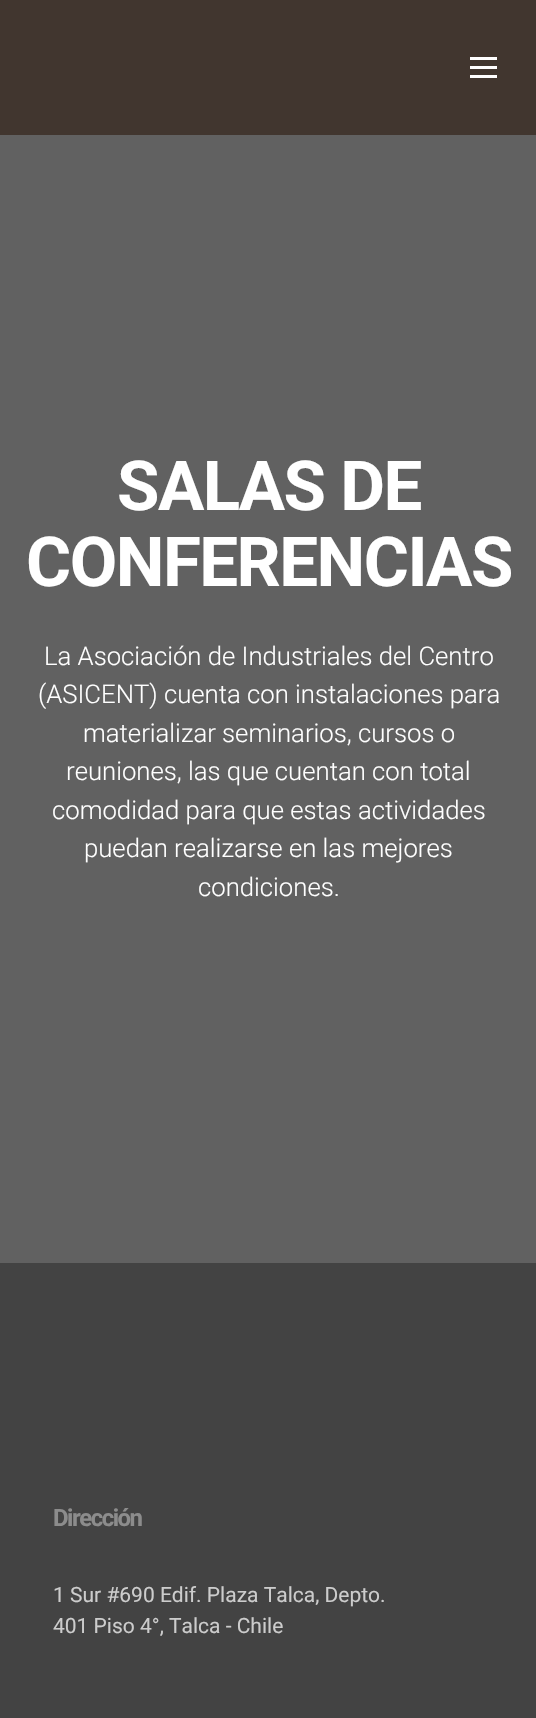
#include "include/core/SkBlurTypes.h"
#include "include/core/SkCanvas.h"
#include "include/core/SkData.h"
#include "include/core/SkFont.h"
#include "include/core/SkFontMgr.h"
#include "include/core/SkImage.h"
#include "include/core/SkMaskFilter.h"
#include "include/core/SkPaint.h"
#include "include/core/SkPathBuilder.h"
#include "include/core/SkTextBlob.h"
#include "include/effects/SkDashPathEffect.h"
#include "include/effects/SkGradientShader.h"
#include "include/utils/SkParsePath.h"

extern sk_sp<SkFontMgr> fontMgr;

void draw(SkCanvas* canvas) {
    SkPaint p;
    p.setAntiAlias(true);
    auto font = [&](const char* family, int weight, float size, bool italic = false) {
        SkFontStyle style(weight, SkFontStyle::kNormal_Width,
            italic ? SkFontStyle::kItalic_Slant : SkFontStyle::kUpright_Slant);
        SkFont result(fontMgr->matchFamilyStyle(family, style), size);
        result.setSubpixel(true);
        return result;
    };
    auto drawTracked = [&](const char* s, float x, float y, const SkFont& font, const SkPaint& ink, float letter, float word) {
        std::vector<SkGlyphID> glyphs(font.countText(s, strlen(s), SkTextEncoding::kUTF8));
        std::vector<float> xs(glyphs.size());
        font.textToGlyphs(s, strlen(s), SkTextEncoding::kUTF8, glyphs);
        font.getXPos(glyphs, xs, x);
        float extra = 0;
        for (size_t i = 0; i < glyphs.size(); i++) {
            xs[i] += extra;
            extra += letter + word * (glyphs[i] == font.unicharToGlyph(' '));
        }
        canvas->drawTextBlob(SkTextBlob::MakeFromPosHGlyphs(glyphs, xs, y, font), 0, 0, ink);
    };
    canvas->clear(0xFF616161);
    {
        const struct { float l, t, r, b; SkColor color; } items[] = {
            {0, 0, 536, 135, 0xFF41362F},
            {470, 75, 497, 78, 0xFFFFFFFF},
            {470, 66, 497, 69, 0xFFFFFFFF},
            {470, 57, 497, 60, 0xFFFFFFFF},
        };
        for (auto [l, t, r, b, color] : items) {
            p.setColor(color);
            canvas->drawRect(SkRect::MakeLTRB(l, t, r, b), p);
        }
    }
    auto font1 = font("Roboto", 700, 69);
    drawTracked("SALAS DE", 117, 510, font1, p, -1.5f, 0);
    drawTracked("CONFERENCIAS", 26, 586, font1, p, -1.5f, 0);
    auto font2 = font("Roboto", 300, 25.7f);
    {
        const struct { const char* s; float x, y; } items[] = {
            {"La Asociación de Industriales del Centro", 44, 665},
            {"(ASICENT) cuenta con instalaciones para", 38, 703},
            {"materializar seminarios, cursos o", 83, 742},
            {"reuniones, las que cuentan con total", 66, 780},
            {"comodidad para que estas actividades", 52, 819},
            {"puedan realizarse en las mejores", 84, 857},
            {"condiciones.", 198, 896},
        };
        for (auto [s, x, y] : items) {
            canvas->drawString(s, x, y, font2, p);
        }
    }
    p.setColor(0xFF434343);
    canvas->drawRect(SkRect::MakeLTRB(0, 1263, 536, 1718), p);
    auto font3 = font("Roboto", 700, 24);
    p.setColor(0xFF8C8C8C);
    drawTracked("Dirección", 53, 1526, font3, p, -1.5f, 0);
    auto font4 = font("Roboto", 400, 21);
    p.setColor(0xFFCCCCCC);
    canvas->drawString("1 Sur #690 Edif. Plaza Talca, Depto.", 53, 1602, font4, p);
    canvas->drawString("401 Piso 4°, Talca - Chile", 53, 1633, font4, p);
}
